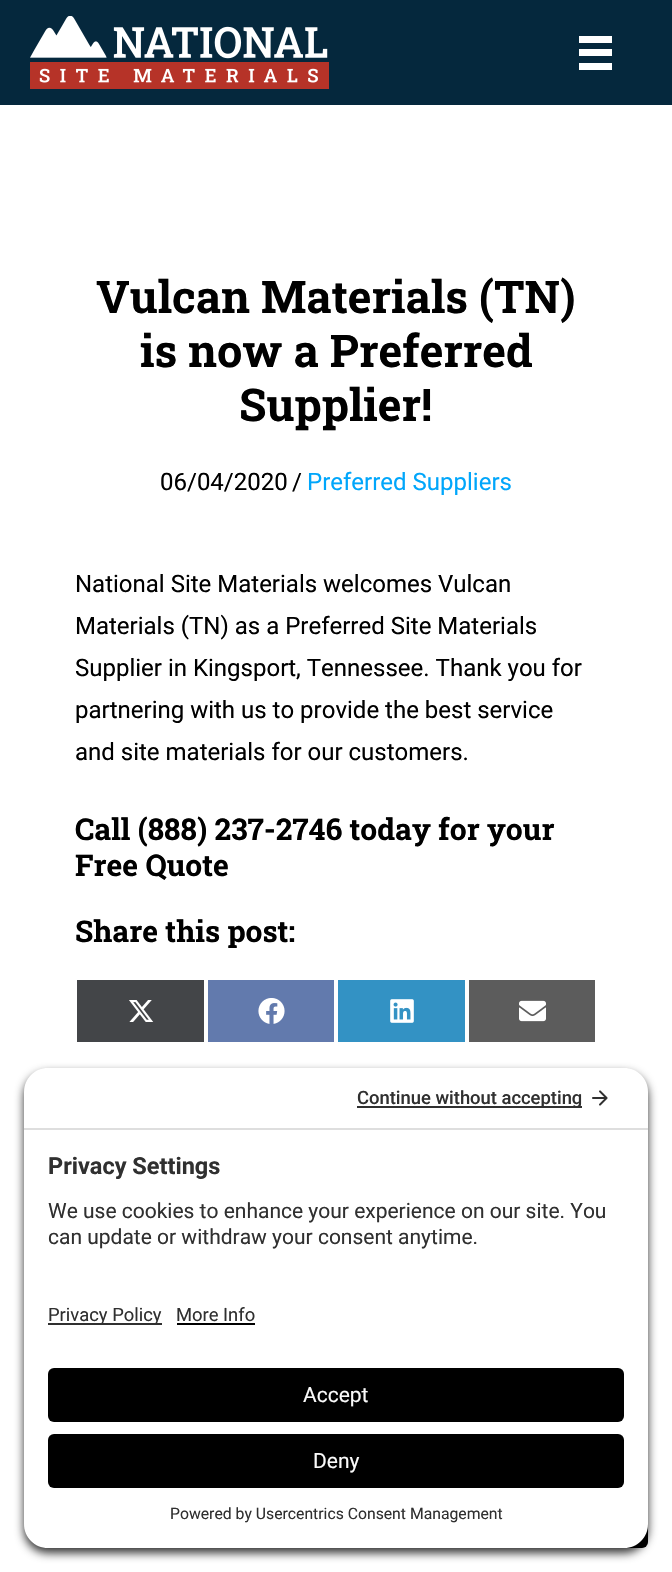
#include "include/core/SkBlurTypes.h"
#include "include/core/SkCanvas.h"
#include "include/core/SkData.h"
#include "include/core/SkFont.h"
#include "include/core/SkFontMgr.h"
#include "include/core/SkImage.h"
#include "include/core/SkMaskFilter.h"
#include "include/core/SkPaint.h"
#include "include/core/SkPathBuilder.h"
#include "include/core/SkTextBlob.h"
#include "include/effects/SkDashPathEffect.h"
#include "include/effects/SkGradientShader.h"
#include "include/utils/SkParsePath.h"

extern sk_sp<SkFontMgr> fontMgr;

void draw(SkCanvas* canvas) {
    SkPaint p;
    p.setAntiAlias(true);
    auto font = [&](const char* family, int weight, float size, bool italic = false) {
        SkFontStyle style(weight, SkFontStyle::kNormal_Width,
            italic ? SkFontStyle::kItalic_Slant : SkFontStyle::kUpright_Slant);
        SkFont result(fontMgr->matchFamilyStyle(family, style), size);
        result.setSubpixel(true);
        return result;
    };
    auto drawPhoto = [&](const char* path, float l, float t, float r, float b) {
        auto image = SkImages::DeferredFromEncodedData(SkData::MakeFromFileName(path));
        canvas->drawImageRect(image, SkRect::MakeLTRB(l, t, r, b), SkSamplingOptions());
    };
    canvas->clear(0xFFFFFFFF);
    p.setColor(0xFF05283D);
    canvas->drawRect(SkRect::MakeLTRB(0, 0, 672, 105), p);
    drawPhoto("media/1.png", 30, 16, 329, 89);
    {
        const struct { float l, t, r, b; SkColor color; } items[] = {
            {579, 36, 612, 43, 0xFFFFFFFF},
            {579, 49, 612, 56, 0xFFFFFFFF},
            {579, 63, 612, 70, 0xFFFFFFFF},
        };
        for (auto [l, t, r, b, color] : items) {
            p.setColor(color);
            canvas->drawRect(SkRect::MakeLTRB(l, t, r, b), p);
        }
    }
    auto font1 = font("Roboto Slab", 700, 45);
    p.setColor(0xFF000000);
    {
        const struct { const char* s; float x, y; } items[] = {
            {"Vulcan Materials (TN)", 96, 313},
            {"is now a Preferred", 140, 367},
            {"Supplier!", 239, 421},
        };
        for (auto [s, x, y] : items) {
            canvas->drawString(s, x, y, font1, p);
        }
    }
    auto font2 = font("Roboto", 400, 24);
    canvas->drawString("06/04/2020", 160, 490, font2, p);
    canvas->drawString("/", 292, 490, font2, p);
    p.setColor(0xFF00A6FB);
    canvas->drawString("Preferred Suppliers", 307, 490, font2, p);
    p.setColor(0xFF000000);
    {
        const struct { const char* s; float x, y; } items[] = {
            {"National Site Materials welcomes Vulcan", 75, 592},
            {"Materials (TN) as a Preferred Site Materials", 75, 634},
            {"Supplier in Kingsport, Tennessee. Thank you for", 75, 676},
            {"partnering with us to provide the best service", 75, 718},
            {"and site materials for our customers.", 75, 760},
        };
        for (auto [s, x, y] : items) {
            canvas->drawString(s, x, y, font2, p);
        }
    }
    auto font3 = font("Roboto Slab", 700, 30);
    {
        const struct { const char* s; float x, y; } items[] = {
            {"Call (888) 237-2746 today for your", 75, 840},
            {"Free Quote", 75, 876},
            {"Share this post:", 75, 942},
        };
        for (auto [s, x, y] : items) {
            canvas->drawString(s, x, y, font3, p);
        }
    }
    p.setColor(0xFF434548);
    canvas->drawRect(SkRect::MakeLTRB(77, 980, 204, 1042), p);
    drawPhoto("media/2.png", 129, 1000, 154, 1022);
    p.setColor(0xFF627AAD);
    canvas->drawRect(SkRect::MakeLTRB(208, 980, 334, 1042), p);
    drawPhoto("media/3.png", 258, 998, 285, 1024);
    p.setColor(0xFF3392C4);
    canvas->drawRect(SkRect::MakeLTRB(338, 980, 465, 1042), p);
    drawPhoto("media/4.png", 390, 999, 414, 1023);
    p.setColor(0xFF5C5C5C);
    canvas->drawRect(SkRect::MakeLTRB(469, 980, 595, 1042), p);
    drawPhoto("media/5.png", 519, 1000, 546, 1022);
    p.setColor(0xFF000000);
    canvas->drawRoundRect(SkRect::MakeLTRB(507, 1476, 648, 1548), 6, 6, p);
    p.setColor(0xCC000000);
    p.setMaskFilter(SkMaskFilter::MakeBlur(kNormal_SkBlurStyle, 5));
    canvas->drawRoundRect(SkRect::MakeLTRB(24, 1073, 648, 1553), 24, 24, p);
    p.setMaskFilter(nullptr);
    p.setColor(0xFFFFFFFF);
    canvas->drawPath(SkPathBuilder().moveTo(48, 1068).lineTo(624, 1068).cubicTo(637.5f, 1068, 648, 1078.5f, 648, 1092).lineTo(648, 1130).lineTo(24, 1130).lineTo(24, 1092).cubicTo(24, 1078.5f, 34.5f, 1068, 48, 1068).close().detach(), p);
    p.setColor(0xFFDEDEDE);
    canvas->drawRect(SkRect::MakeLTRB(24, 1128, 648, 1130), p);
    p.setColor(0xFF303030);
    canvas->drawRect(SkRect::MakeLTRB(357, 1106, 582, 1108), p);
    auto font4 = font("Roboto", 500, 18.4f);
    canvas->drawString("Continue without accepting", 357, 1104, font4, p);
    drawPhoto("media/6.png", 592, 1090, 608, 1106);
    p.setColor(0xFFFFFFFF);
    canvas->drawRect(SkRect::MakeLTRB(24, 1130, 648, 1281), p);
    auto font5 = font("Roboto", 700, 23.5f);
    p.setColor(0xFF303030);
    canvas->drawString("Privacy Settings", 48, 1174, font5, p);
    auto font6 = font("Roboto", 400, 21);
    canvas->drawString("We use cookies to enhance your experience on our site. You", 48, 1218, font6, p);
    canvas->drawString("can update or withdraw your consent anytime.", 48, 1244, font6, p);
    p.setColor(0xFFFFFFFF);
    canvas->drawPath(SkPathBuilder().moveTo(24, 1281).lineTo(648, 1281).lineTo(648, 1524).cubicTo(648, 1537.5f, 637.5f, 1548, 624, 1548).lineTo(48, 1548).cubicTo(34.5f, 1548, 24, 1537.5f, 24, 1524).close().detach(), p);
    p.setColor(0xFF303030);
    canvas->drawRect(SkRect::MakeLTRB(48, 1323, 162, 1325), p);
    auto font7 = font("Roboto", 400, 18.4f);
    canvas->drawString("Privacy Policy", 48, 1321, font7, p);
    canvas->drawString("More Info", 176, 1321, font7, p);
    p.setColor(0xFF000000);
    canvas->drawRect(SkRect::MakeLTRB(177, 1323, 255, 1325), p);
    canvas->drawRoundRect(SkRect::MakeLTRB(48, 1368, 624, 1422), 6, 6, p);
    p.setColor(0xFFFAFAFA);
    canvas->drawString("Accept", 303, 1402, font6, p);
    p.setColor(0xFF000000);
    canvas->drawRoundRect(SkRect::MakeLTRB(48, 1434, 624, 1488), 6, 6, p);
    p.setColor(0xFFFAFAFA);
    canvas->drawString("Deny", 313, 1468, font6, p);
    auto font8 = font("Roboto", 400, 15.75f);
    p.setColor(0xFF303030);
    canvas->drawString("Powered by Usercentrics Consent Management", 170, 1519, font8, p);
}
